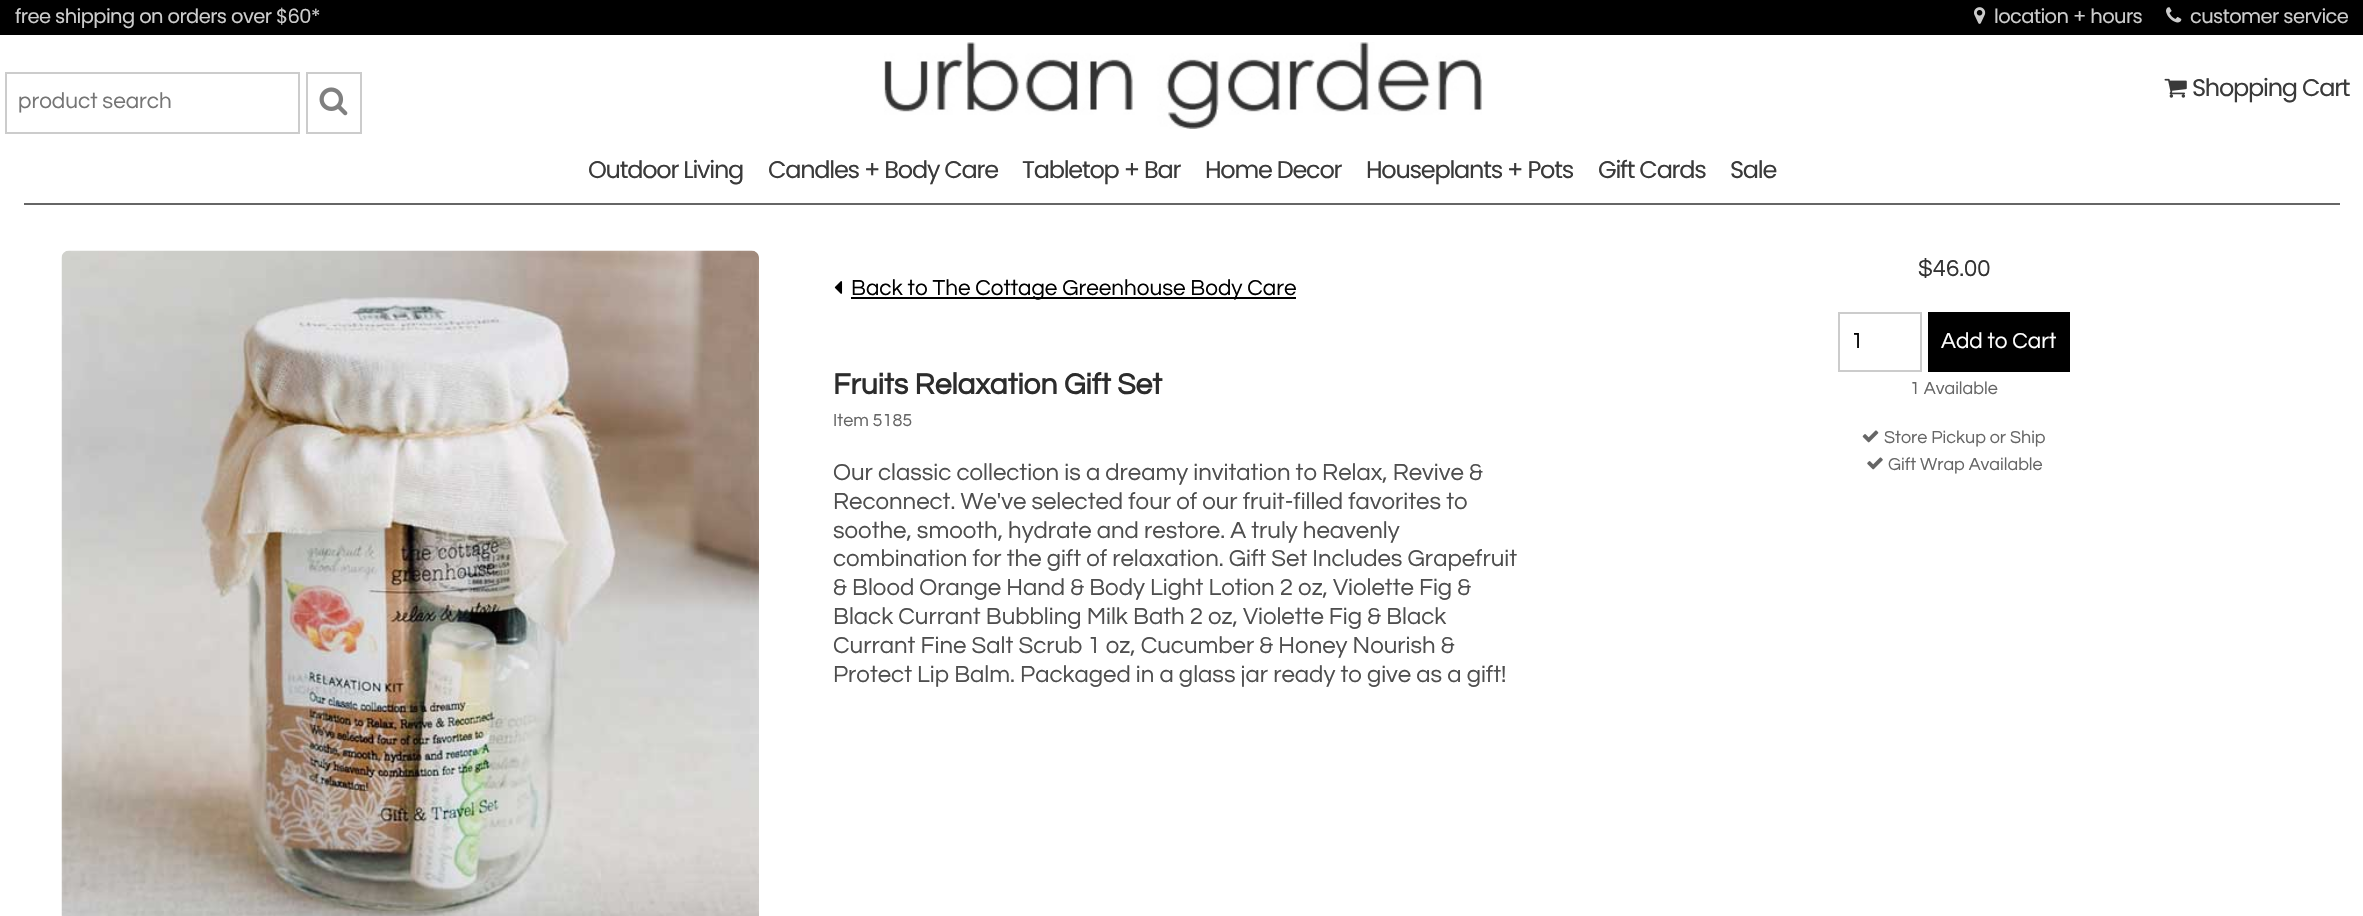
#include "include/core/SkBlurTypes.h"
#include "include/core/SkCanvas.h"
#include "include/core/SkData.h"
#include "include/core/SkFont.h"
#include "include/core/SkFontMgr.h"
#include "include/core/SkImage.h"
#include "include/core/SkMaskFilter.h"
#include "include/core/SkPaint.h"
#include "include/core/SkPathBuilder.h"
#include "include/core/SkTextBlob.h"
#include "include/effects/SkDashPathEffect.h"
#include "include/effects/SkGradientShader.h"
#include "include/utils/SkParsePath.h"

extern sk_sp<SkFontMgr> fontMgr;

void draw(SkCanvas* canvas) {
    SkPaint p;
    p.setAntiAlias(true);
    auto font = [&](const char* family, int weight, float size, bool italic = false) {
        SkFontStyle style(weight, SkFontStyle::kNormal_Width,
            italic ? SkFontStyle::kItalic_Slant : SkFontStyle::kUpright_Slant);
        SkFont result(fontMgr->matchFamilyStyle(family, style), size);
        result.setSubpixel(true);
        return result;
    };
    auto drawTracked = [&](const char* s, float x, float y, const SkFont& font, const SkPaint& ink, float letter, float word) {
        std::vector<SkGlyphID> glyphs(font.countText(s, strlen(s), SkTextEncoding::kUTF8));
        std::vector<float> xs(glyphs.size());
        font.textToGlyphs(s, strlen(s), SkTextEncoding::kUTF8, glyphs);
        font.getXPos(glyphs, xs, x);
        float extra = 0;
        for (size_t i = 0; i < glyphs.size(); i++) {
            xs[i] += extra;
            extra += letter + word * (glyphs[i] == font.unicharToGlyph(' '));
        }
        canvas->drawTextBlob(SkTextBlob::MakeFromPosHGlyphs(glyphs, xs, y, font), 0, 0, ink);
    };
    auto drawPhoto = [&](const char* path, float l, float t, float r, float b) {
        auto image = SkImages::DeferredFromEncodedData(SkData::MakeFromFileName(path));
        canvas->drawImageRect(image, SkRect::MakeLTRB(l, t, r, b), SkSamplingOptions());
    };
    canvas->clear(0xFFFFFFFF);
    p.setColor(0xFF000000);
    canvas->drawRect(SkRect::MakeLTRB(0, 0, 2363, 35), p);
    auto font1 = font("Poppins", 400, 19.5f);
    p.setColor(0xFFCCCCCC);
    drawTracked("free shipping on orders over $60*", 15, 23, font1, p, -0.6f, 0);
    drawPhoto("media/1.png", 1974, 7, 1986, 24);
    drawTracked("location + hours", 1994, 23, font1, p, -0.6f, 0);
    drawPhoto("media/2.png", 2166, 7, 2182, 23);
    drawTracked("customer service", 2190, 23, font1, p, -0.6f, 0);
    p.setStyle(SkPaint::kStroke_Style);
    p.setStrokeWidth(2);
    canvas->drawRect(SkRect::MakeLTRB(6, 73, 299, 133), p);
    auto font2 = font("Questrial", 400, 22.5f);
    p.setStyle(SkPaint::kFill_Style);
    p.setColor(0xFF757575);
    canvas->drawString("product search", 18, 108, font2, p);
    p.setStyle(SkPaint::kStroke_Style);
    p.setColor(0xFFCCCCCC);
    canvas->drawRect(SkRect::MakeLTRB(307, 73, 361, 133), p);
    drawPhoto("media/3.png", 319, 87, 348, 116);
    drawPhoto("media/4.png", 884, 42, 1482, 129);
    drawPhoto("media/5.png", 2164, 78, 2187, 98);
    auto font3 = font("Poppins", 400, 24);
    p.setStyle(SkPaint::kFill_Style);
    p.setColor(0xFF3A3A3A);
    {
        const struct { const char* s; float x, y; } items[] = {
            {"Shopping Cart", 2192, 96},
            {"Outdoor Living", 588, 178},
            {"Candles + Body Care", 768, 178},
            {"Tabletop + Bar", 1022, 178},
            {"Home Decor", 1205, 178},
            {"Houseplants + Pots", 1366, 178},
            {"Gift Cards", 1598, 178},
            {"Sale", 1730, 178},
        };
        for (auto [s, x, y] : items) {
            drawTracked(s, x, y, font3, p, -1.25f, 0);
        }
    }
    p.setColor(0xFF666666);
    canvas->drawRect(SkRect::MakeLTRB(24, 203, 2340, 205), p);
    drawPhoto("media/6.png", 61, 250, 759, 916);
    drawPhoto("media/7.png", 834, 281, 843, 294);
    p.setColor(0xFF000000);
    canvas->drawRect(SkRect::MakeLTRB(851, 297, 1296, 299), p);
    canvas->drawString("Back to The Cottage Greenhouse Body Care", 851, 295, font2, p);
    auto font4 = font("Questrial", 700, 30);
    p.setColor(0xFF2C2C2C);
    canvas->drawString("Fruits Relaxation Gift Set", 833, 394, font4, p);
    auto font5 = font("Questrial", 400, 18);
    p.setColor(0xFF666666);
    canvas->drawString("Item 5185", 833, 426, font5, p);
    auto font6 = font("Questrial", 400, 24);
    p.setColor(0xFF4E4E4E);
    {
        const struct { const char* s; float x, y; } items[] = {
            {"Our classic collection is a dreamy invitation to Relax, Revive &", 833, 480},
            {"Reconnect. We've selected four of our fruit-filled favorites to", 833, 509},
            {"soothe, smooth, hydrate and restore. A truly heavenly", 833, 538},
            {"combination for the gift of relaxation. Gift Set Includes Grapefruit", 833, 566},
            {"& Blood Orange Hand & Body Light Lotion 2 oz, Violette Fig &", 833, 595},
            {"Black Currant Bubbling Milk Bath 2 oz, Violette Fig & Black", 833, 624},
            {"Currant Fine Salt Scrub 1 oz, Cucumber & Honey Nourish &", 833, 653},
            {"Protect Lip Balm. Packaged in a glass jar ready to give as a gift!", 833, 682},
        };
        for (auto [s, x, y] : items) {
            canvas->drawString(s, x, y, font6, p);
        }
    }
    p.setColor(0xFF333333);
    canvas->drawString("$46.00", 1918, 276, font6, p);
    p.setStyle(SkPaint::kStroke_Style);
    p.setColor(0xFFCCCCCC);
    canvas->drawRect(SkRect::MakeLTRB(1839, 313, 1921, 371), p);
    p.setStyle(SkPaint::kFill_Style);
    p.setColor(0xFF000000);
    canvas->drawString("1", 1851, 348, font2, p);
    canvas->drawRect(SkRect::MakeLTRB(1928, 312, 2070, 372), p);
    p.setColor(0xFFFFFFFF);
    canvas->drawString("Add to Cart", 1941, 348, font2, p);
    p.setColor(0xFF666666);
    canvas->drawString("1 Available", 1910, 394, font5, p);
    drawPhoto("media/8.png", 1862, 430, 1879, 443);
    canvas->drawString("Store Pickup or Ship", 1884, 443, font5, p);
    drawPhoto("media/9.png", 1867, 457, 1883, 470);
    canvas->drawString("Gift Wrap Available", 1888, 470, font5, p);
}
